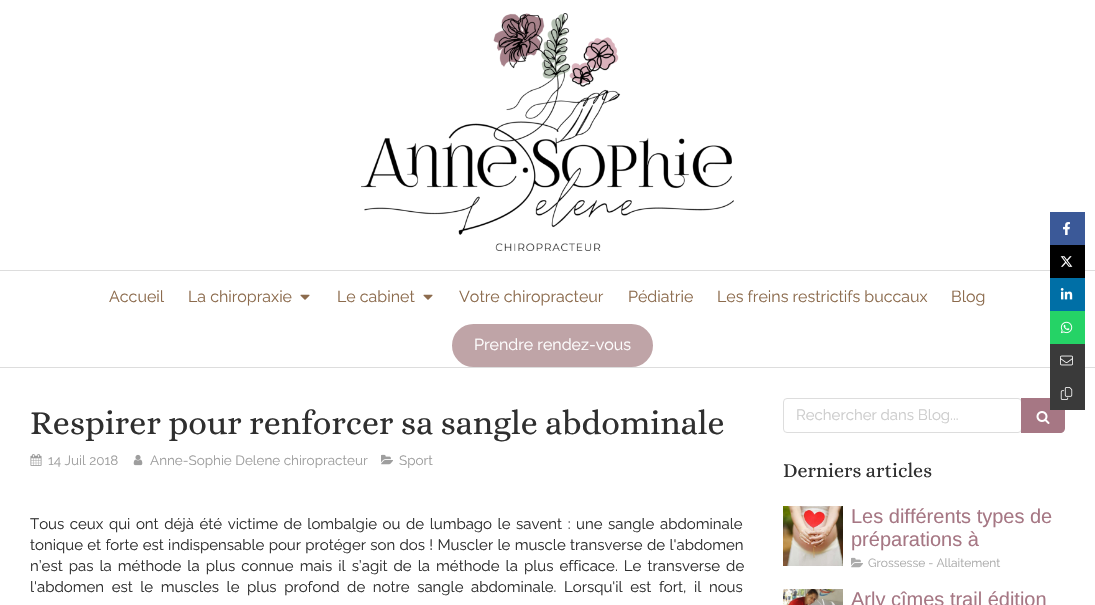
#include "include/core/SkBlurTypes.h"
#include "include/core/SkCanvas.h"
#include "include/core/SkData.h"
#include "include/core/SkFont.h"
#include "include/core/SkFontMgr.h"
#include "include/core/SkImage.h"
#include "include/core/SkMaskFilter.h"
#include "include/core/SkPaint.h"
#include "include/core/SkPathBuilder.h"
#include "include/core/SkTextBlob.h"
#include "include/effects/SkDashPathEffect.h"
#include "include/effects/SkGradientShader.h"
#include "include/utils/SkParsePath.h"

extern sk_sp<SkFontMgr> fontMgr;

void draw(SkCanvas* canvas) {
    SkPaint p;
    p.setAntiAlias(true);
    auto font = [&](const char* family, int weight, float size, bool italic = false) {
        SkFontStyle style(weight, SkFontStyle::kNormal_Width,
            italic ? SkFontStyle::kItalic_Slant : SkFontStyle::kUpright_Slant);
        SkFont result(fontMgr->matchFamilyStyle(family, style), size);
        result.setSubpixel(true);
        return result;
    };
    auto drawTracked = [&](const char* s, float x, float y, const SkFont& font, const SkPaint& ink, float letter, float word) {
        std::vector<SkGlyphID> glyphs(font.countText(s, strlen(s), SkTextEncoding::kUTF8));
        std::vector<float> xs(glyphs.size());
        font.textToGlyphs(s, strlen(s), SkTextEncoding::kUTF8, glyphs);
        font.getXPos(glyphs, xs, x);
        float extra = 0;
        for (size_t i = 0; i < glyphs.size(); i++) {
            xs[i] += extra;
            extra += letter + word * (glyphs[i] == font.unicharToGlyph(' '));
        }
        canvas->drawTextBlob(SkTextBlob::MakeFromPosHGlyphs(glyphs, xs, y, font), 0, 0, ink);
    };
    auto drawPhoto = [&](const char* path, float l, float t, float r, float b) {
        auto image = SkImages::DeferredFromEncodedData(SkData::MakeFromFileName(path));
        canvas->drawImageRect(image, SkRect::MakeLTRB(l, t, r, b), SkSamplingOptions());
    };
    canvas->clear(0xFFFFFFFF);
    drawPhoto("media/1.png", 361, 13, 734, 251);
    p.setColor(0xFFDDDDDD);
    canvas->drawRect(SkRect::MakeLTRB(0, 270, 1095, 271), p);
    canvas->drawRect(SkRect::MakeLTRB(0, 367, 1095, 368), p);
    auto font1 = font("Raleway", 400, 16);
    p.setColor(0xFF8C6B4D);
    canvas->drawString("Accueil", 109, 302, font1, p);
    canvas->drawString("La chiropraxie", 188, 302, font1, p);
    drawPhoto("media/2.png", 300, 294, 310, 300);
    canvas->drawString("Le cabinet", 337, 302, font1, p);
    drawPhoto("media/2.png", 423, 294, 433, 300);
    {
        const struct { const char* s; float x, y; } items[] = {
            {"Votre chiropracteur", 459, 302},
            {"Pédiatrie", 628, 302},
            {"Les freins restrictifs buccaux", 717, 302},
            {"Blog", 951, 302},
        };
        for (auto [s, x, y] : items) {
            canvas->drawString(s, x, y, font1, p);
        }
    }
    p.setColor(0xFFBFA4A7);
    canvas->drawRoundRect(SkRect::MakeLTRB(453, 325, 652, 366), 20.5f, 20.5f, p);
    p.setStyle(SkPaint::kStroke_Style);
    p.setStrokeWidth(2);
    canvas->drawRoundRect(SkRect::MakeLTRB(453, 325, 652, 366), 20.5f, 20.5f, p);
    p.setStyle(SkPaint::kFill_Style);
    p.setColor(0xFFFFFFFF);
    canvas->drawString("Prendre rendez-vous", 474, 350, font1, p);
    p.setColor(0xFF3B5998);
    canvas->drawRect(SkRect::MakeLTRB(1050, 212, 1085, 245), p);
    drawPhoto("media/3.png", 1063, 222, 1070, 235);
    p.setColor(0xFF000000);
    canvas->drawRect(SkRect::MakeLTRB(1050, 245, 1085, 278), p);
    drawPhoto("media/4.png", 1060, 256, 1073, 267);
    p.setColor(0xFF006FA6);
    canvas->drawRect(SkRect::MakeLTRB(1050, 278, 1085, 311), p);
    drawPhoto("media/5.png", 1060, 288, 1073, 300);
    p.setColor(0xFF25D366);
    canvas->drawRect(SkRect::MakeLTRB(1050, 311, 1085, 344), p);
    drawPhoto("media/6.png", 1060, 321, 1073, 334);
    p.setStyle(SkPaint::kStroke_Style);
    p.setStrokeWidth(1);
    p.setColor(0xFFDDDDDD);
    canvas->drawRoundRect(SkRect::MakeLTRB(783.5f, 398.5f, 1021.5f, 432.5f), 3.5f, 3.5f, p);
    p.setStyle(SkPaint::kFill_Style);
    p.setColor(0xFFA67784);
    canvas->drawPath(SkPathBuilder().moveTo(1021, 398).lineTo(1060, 398).cubicTo(1063, 398, 1065, 400, 1065, 403).lineTo(1065, 428).cubicTo(1065, 431, 1063, 433, 1060, 433).lineTo(1021, 433).close().detach(), p);
    p.setColor(0xFF3A3A3A);
    canvas->drawRect(SkRect::MakeLTRB(1050, 344, 1085, 410), p);
    drawPhoto("media/7.png", 1060, 355, 1073, 366);
    drawPhoto("media/8.png", 1060, 387, 1073, 400);
    auto font2 = font("Alice", 400, 34);
    p.setColor(0xFF2F2F2F);
    canvas->drawString("Respirer pour renforcer sa sangle abdominale", 30, 434, font2, p);
    drawPhoto("media/9.png", 30, 454, 42, 466);
    auto font3 = font("Raleway", 400, 13.5f);
    p.setColor(0xFF9E9E9E);
    canvas->drawString("14 Juil 2018", 48, 465, font3, p);
    drawPhoto("media/10.png", 133, 454, 143, 466);
    canvas->drawString("Anne-Sophie Delene chiropracteur", 150, 465, font3, p);
    drawPhoto("media/11.png", 381, 454, 393, 465);
    canvas->drawString("Sport", 399, 465, font3, p);
    auto font4 = font("Raleway", 400, 15);
    p.setColor(0xFF2F2F2F);
    drawTracked("Tous ceux qui ont déjà été victime de lombalgie ou de lumbago le savent : une sangle abdominale", 30, 529, font4, p, 0, 1.75f);
    drawTracked("tonique et forte est indispensable pour protéger son dos ! Muscler le muscle transverse de l'abdomen", 30, 550, font4, p, 0, 0.5f);
    drawTracked("n’est pas la méthode la plus connue mais il s’agit de la méthode la plus efficace. Le transverse de", 30, 571, font4, p, 0, 2.25f);
    drawTracked("l'abdomen est le muscles le plus profond de notre sangle abdominale. Lorsqu'il est fort, il nous", 30, 592, font4, p, 0, 3.75f);
    p.setColor(0xFFCCCCCC);
    canvas->drawString("Rechercher dans Blog...", 796, 420, font4, p);
    drawPhoto("media/12.png", 1036, 411, 1050, 424);
    auto font5 = font("Alice", 400, 20);
    p.setColor(0xFF2F2F2F);
    canvas->drawString("Derniers articles", 783, 477, font5, p);
    drawPhoto("media/13.png", 783, 506, 843, 566);
    auto font6 = font("Liberation Sans", 400, 20);
    p.setColor(0xFFA67784);
    canvas->drawString("Les différents types de", 851, 523, font6, p);
    canvas->drawString("préparations à", 851, 546, font6, p);
    drawPhoto("media/14.png", 851, 557, 863, 568);
    auto font7 = font("Raleway", 400, 12);
    p.setColor(0xFFABABAB);
    canvas->drawString("Grossesse - Allaitement", 868, 567, font7, p);
    drawPhoto("media/15.png", 783, 589, 843, 605);
    p.setColor(0xFFA67784);
    canvas->drawString("Arly cîmes trail édition", 851, 606, font6, p);
}
